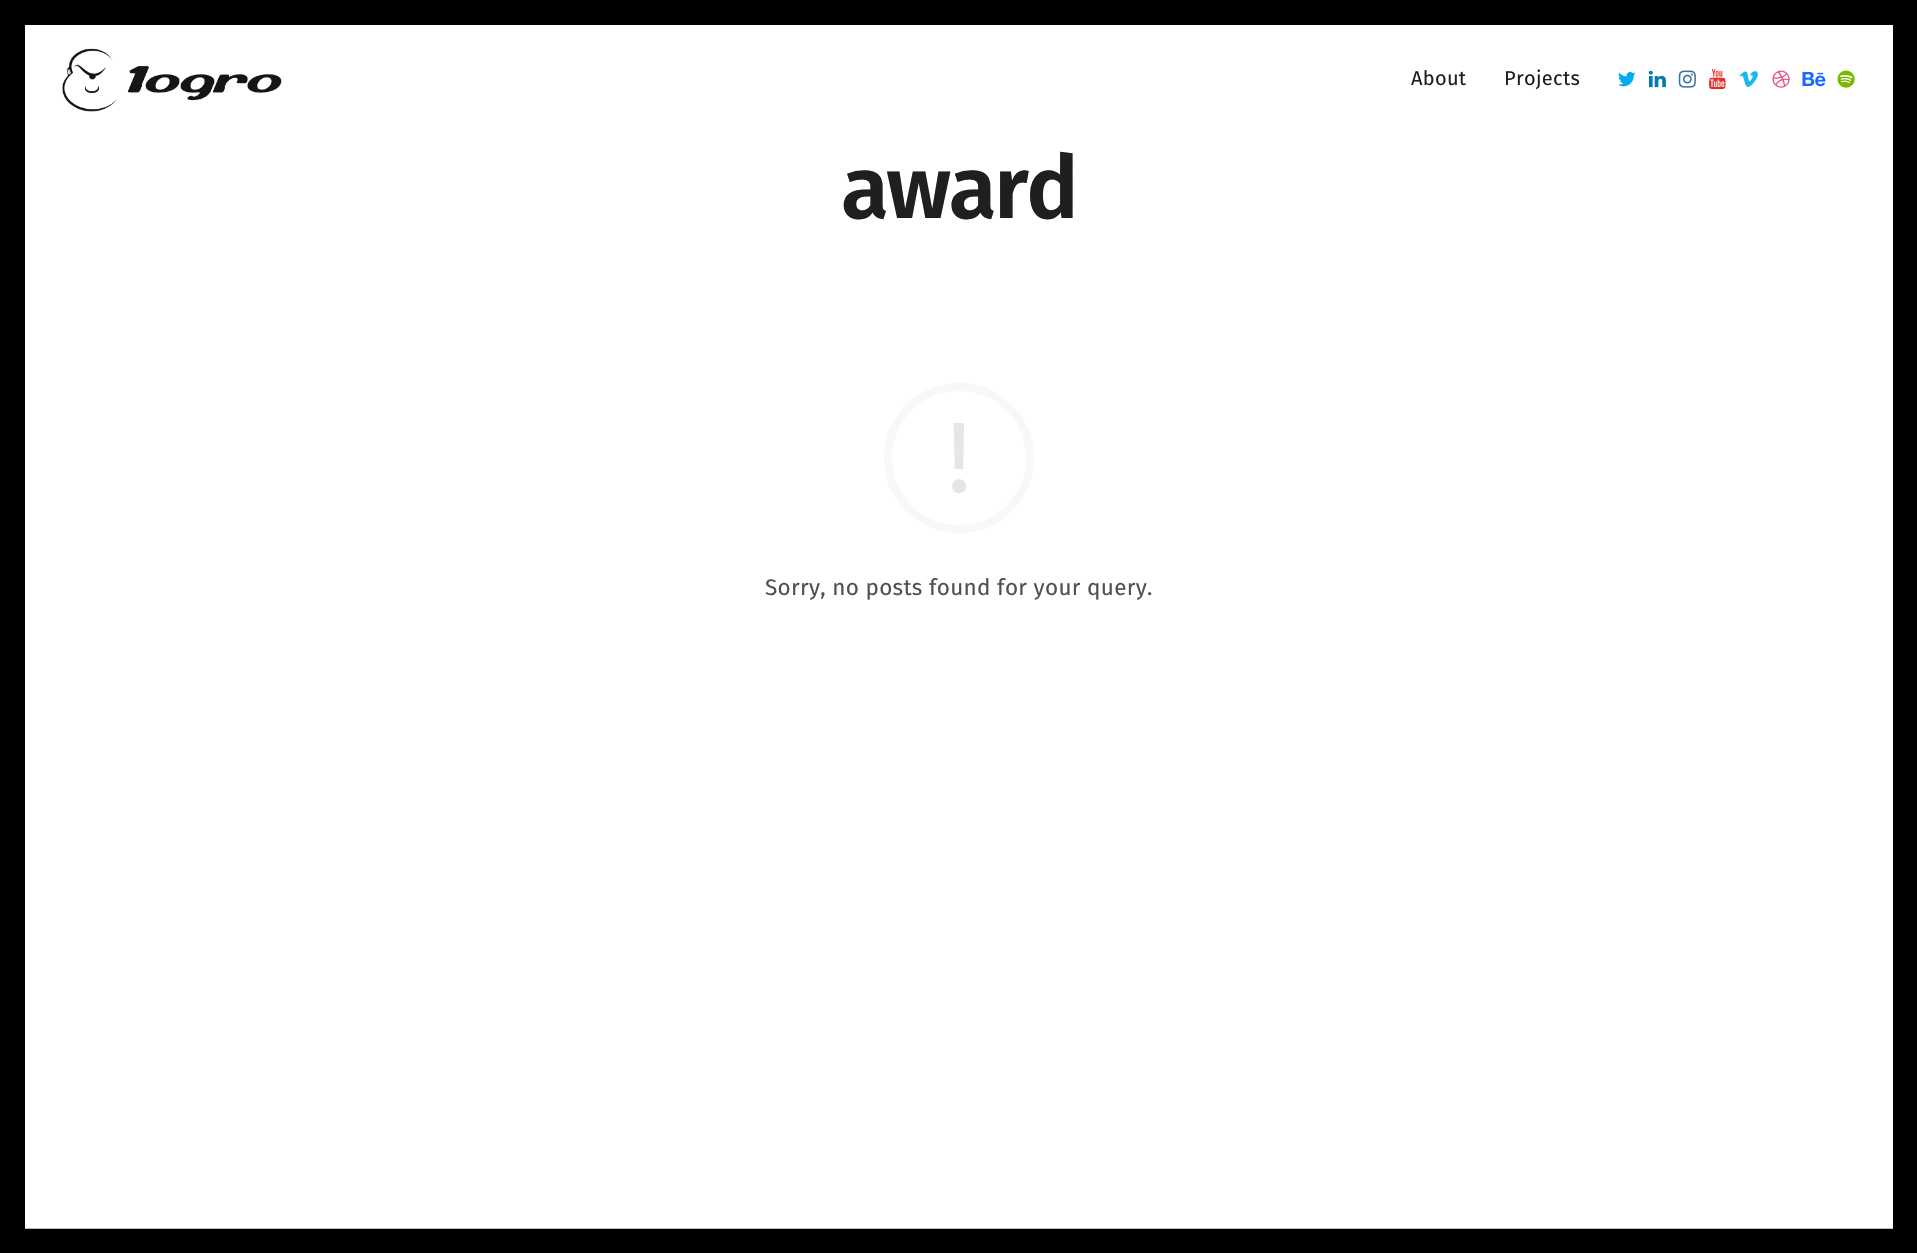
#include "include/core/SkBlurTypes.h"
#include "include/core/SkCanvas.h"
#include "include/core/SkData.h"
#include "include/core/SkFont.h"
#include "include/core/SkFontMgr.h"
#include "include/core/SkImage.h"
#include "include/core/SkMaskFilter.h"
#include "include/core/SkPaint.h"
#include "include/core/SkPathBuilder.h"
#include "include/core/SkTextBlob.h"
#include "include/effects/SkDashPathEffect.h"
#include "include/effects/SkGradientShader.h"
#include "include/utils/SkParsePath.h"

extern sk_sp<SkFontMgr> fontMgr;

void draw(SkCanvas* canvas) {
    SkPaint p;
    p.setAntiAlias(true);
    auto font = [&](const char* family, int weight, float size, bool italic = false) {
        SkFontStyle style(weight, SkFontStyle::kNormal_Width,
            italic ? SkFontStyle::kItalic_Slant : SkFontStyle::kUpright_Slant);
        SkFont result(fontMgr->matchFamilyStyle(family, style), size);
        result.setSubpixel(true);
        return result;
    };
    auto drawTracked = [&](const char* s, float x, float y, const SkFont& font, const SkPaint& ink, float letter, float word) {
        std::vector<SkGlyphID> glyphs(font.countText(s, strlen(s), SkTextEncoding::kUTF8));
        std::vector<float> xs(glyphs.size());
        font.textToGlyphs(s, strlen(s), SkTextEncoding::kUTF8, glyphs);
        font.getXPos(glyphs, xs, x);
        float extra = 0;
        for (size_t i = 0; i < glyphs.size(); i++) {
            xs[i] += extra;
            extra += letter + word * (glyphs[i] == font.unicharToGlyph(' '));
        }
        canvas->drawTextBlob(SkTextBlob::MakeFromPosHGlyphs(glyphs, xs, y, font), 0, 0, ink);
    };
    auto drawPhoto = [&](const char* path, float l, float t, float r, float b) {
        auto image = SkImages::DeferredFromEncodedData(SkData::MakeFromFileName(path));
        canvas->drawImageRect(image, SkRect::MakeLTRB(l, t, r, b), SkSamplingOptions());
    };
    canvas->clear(0xFFFFFFFF);
    drawPhoto("media/1.png", 62, 48, 282, 112);
    drawPhoto("media/2.png", 1618, 72, 1636, 87);
    drawPhoto("media/3.png", 1648, 70, 1666, 88);
    drawPhoto("media/4.png", 1678, 70, 1696, 88);
    drawPhoto("media/5.png", 1709, 69, 1726, 90);
    drawPhoto("media/6.png", 1739, 71, 1758, 87);
    drawPhoto("media/7.png", 1772, 70, 1790, 88);
    drawPhoto("media/8.png", 1802, 71, 1826, 87);
    drawPhoto("media/9.png", 1837, 70, 1855, 88);
    p.setStyle(SkPaint::kStroke_Style);
    p.setStrokeWidth(8);
    p.setColor(0xFFF8F8F8);
    canvas->drawCircle(959, 458, 71, p);
    p.setStyle(SkPaint::kFill_Style);
    p.setColor(0xFFBDBDBD);
    canvas->drawRect(SkRect::MakeLTRB(25, 1228, 1893, 1229), p);
    p.setStyle(SkPaint::kStroke_Style);
    p.setStrokeWidth(25);
    p.setColor(0xFF000000);
    canvas->drawRect(SkRect::MakeLTRB(12.5f, 12.5f, 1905.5f, 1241.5f), p);
    auto font1 = font("Fira Sans", 400, 20);
    p.setStyle(SkPaint::kFill_Style);
    p.setColor(0xFF1F1F1F);
    drawTracked("About", 1411, 85, font1, p, 0.3f, 0);
    drawTracked("Projects", 1504, 85, font1, p, 0.3f, 0);
    auto font2 = font("Fira Sans", 600, 87.5f);
    drawTracked("award", 841, 218, font2, p, -2.5f, 0);
    auto font3 = font("Fira Sans", 400, 100);
    p.setColor(0xFFE6E6E6);
    drawTracked("!", 947, 492, font3, p, 0.3f, 0);
    auto font4 = font("Fira Sans", 400, 22.5f);
    p.setColor(0xFF505050);
    drawTracked("Sorry, no posts found for your query.", 765, 595, font4, p, 0.3f, 0);
}
